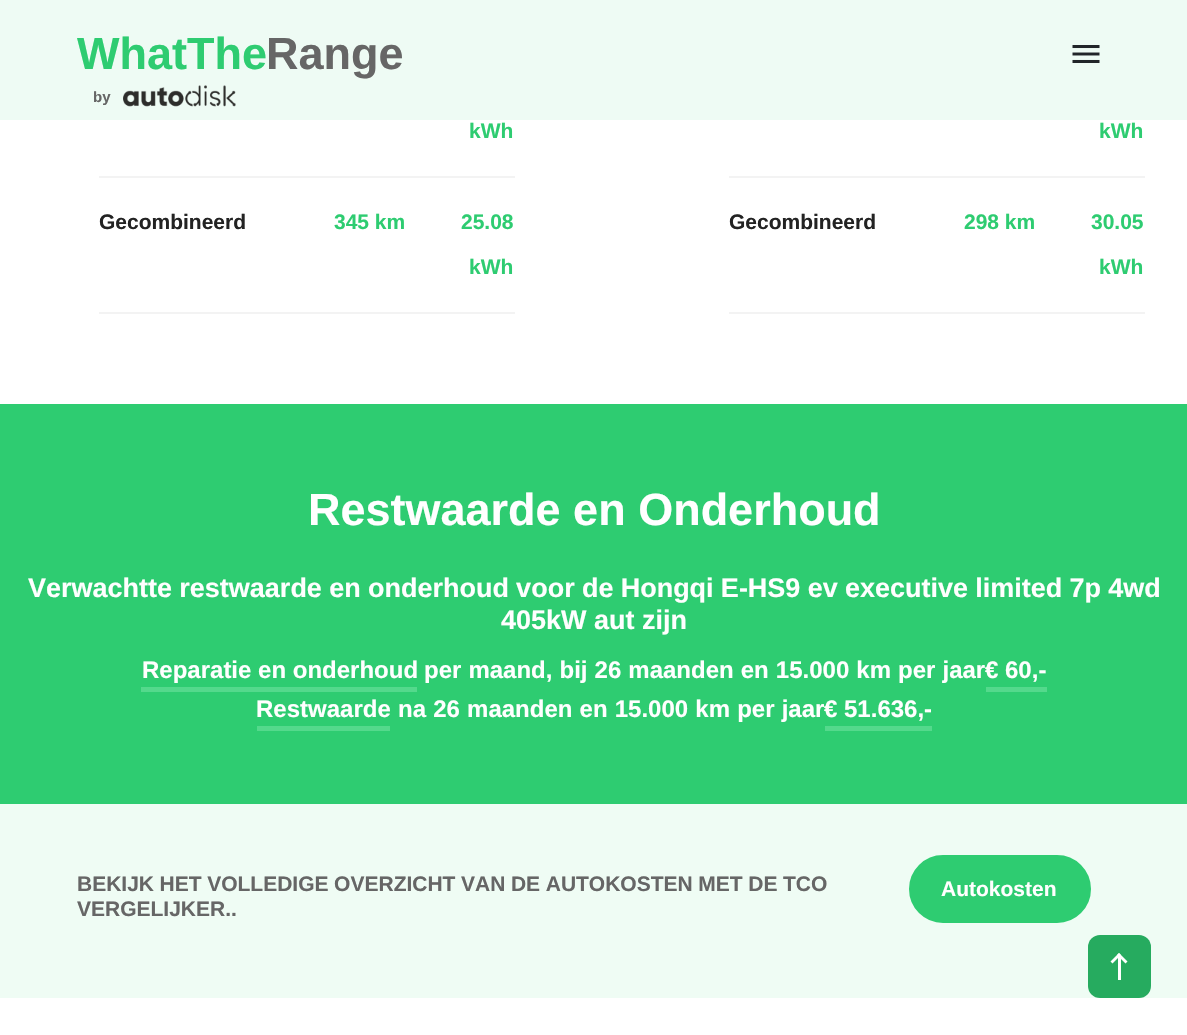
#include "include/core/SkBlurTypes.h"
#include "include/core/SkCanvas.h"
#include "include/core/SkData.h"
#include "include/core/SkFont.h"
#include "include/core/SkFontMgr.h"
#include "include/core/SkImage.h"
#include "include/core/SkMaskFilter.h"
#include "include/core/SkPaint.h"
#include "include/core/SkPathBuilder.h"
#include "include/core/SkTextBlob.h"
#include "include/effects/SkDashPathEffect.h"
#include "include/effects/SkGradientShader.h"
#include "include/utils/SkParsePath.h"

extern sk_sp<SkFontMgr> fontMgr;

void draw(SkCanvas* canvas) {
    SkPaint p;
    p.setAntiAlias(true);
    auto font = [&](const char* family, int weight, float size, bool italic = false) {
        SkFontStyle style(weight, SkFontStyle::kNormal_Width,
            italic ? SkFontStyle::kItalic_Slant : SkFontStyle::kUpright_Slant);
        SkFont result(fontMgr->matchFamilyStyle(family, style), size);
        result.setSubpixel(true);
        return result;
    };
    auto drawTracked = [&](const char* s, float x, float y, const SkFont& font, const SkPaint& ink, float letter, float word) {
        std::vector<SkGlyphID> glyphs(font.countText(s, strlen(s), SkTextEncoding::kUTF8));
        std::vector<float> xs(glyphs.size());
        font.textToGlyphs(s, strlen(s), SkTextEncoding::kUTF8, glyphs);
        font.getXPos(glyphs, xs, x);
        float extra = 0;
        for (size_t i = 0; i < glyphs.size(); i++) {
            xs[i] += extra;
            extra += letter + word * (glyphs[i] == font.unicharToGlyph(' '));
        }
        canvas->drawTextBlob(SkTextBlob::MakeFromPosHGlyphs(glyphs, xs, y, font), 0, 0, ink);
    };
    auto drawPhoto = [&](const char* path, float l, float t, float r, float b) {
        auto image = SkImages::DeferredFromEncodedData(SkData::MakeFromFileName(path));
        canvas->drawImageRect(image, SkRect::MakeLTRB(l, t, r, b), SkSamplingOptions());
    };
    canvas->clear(0xFFFFFFFF);
    p.setColor(0xFFEEFBF4);
    canvas->drawRect(SkRect::MakeLTRB(0, 0, 1187, 120), p);
    auto font1 = font("Liberation Sans", 700, 45);
    p.setColor(0xFF2ECC71);
    canvas->drawString("WhatThe", 77, 69, font1, p);
    p.setColor(0xFF666666);
    canvas->drawString("Range", 266, 69, font1, p);
    auto font2 = font("Liberation Sans", 700, 15);
    canvas->drawString("by", 93, 102, font2, p);
    drawPhoto("media/1.png", 123, 85, 236, 107);
    drawPhoto("media/2.png", 1072, 45, 1100, 63);
    p.setColor(0xFFF3F3F3);
    canvas->drawRect(SkRect::MakeLTRB(99, 176, 515, 178), p);
    auto font3 = font("Liberation Sans", 700, 21);
    p.setColor(0xFF2ECC71);
    canvas->drawString("kWh", 469, 138, font3, p);
    p.setColor(0xFF232323);
    canvas->drawString("Gecombineerd", 99, 229, font3, p);
    p.setColor(0xFF2ECC71);
    canvas->drawString("345 km", 334, 229, font3, p);
    p.setColor(0xFFF3F3F3);
    canvas->drawRect(SkRect::MakeLTRB(99, 312, 515, 314), p);
    p.setColor(0xFF2ECC71);
    canvas->drawString("25.08", 461, 229, font3, p);
    canvas->drawString("kWh", 469, 274, font3, p);
    p.setColor(0xFFF3F3F3);
    canvas->drawRect(SkRect::MakeLTRB(729, 176, 1145, 178), p);
    p.setColor(0xFF2ECC71);
    canvas->drawString("kWh", 1099, 138, font3, p);
    p.setColor(0xFF232323);
    canvas->drawString("Gecombineerd", 729, 229, font3, p);
    p.setColor(0xFF2ECC71);
    canvas->drawString("298 km", 964, 229, font3, p);
    p.setColor(0xFFF3F3F3);
    canvas->drawRect(SkRect::MakeLTRB(729, 312, 1145, 314), p);
    p.setColor(0xFF2ECC71);
    canvas->drawString("30.05", 1091, 229, font3, p);
    canvas->drawString("kWh", 1099, 274, font3, p);
    canvas->drawRect(SkRect::MakeLTRB(0, 404, 1187, 804), p);
    p.setColor(0xFFFFFFFF);
    canvas->drawString("Restwaarde en Onderhoud", 308, 525, font1, p);
    auto font4 = font("Liberation Sans", 700, 27);
    drawTracked("Verwachtte restwaarde en onderhoud voor de Hongqi E-HS9 ev executive limited 7p 4wd", 28, 597, font4, p, 0, -0.25f);
    canvas->drawString("405kW aut zijn", 501, 629, font4, p);
    auto font5 = font("Liberation Sans", 700, 24);
    canvas->drawString("Reparatie en onderhoud", 142, 678, font5, p);
    p.setColor(0xFF54D98C);
    canvas->drawRect(SkRect::MakeLTRB(141, 687, 417, 692), p);
    p.setColor(0xFFFFFFFF);
    drawTracked("per maand, bij 26 maanden en 15.000 km per jaar", 424, 678, font5, p, 0, 0.4f);
    canvas->drawString("€ 60,-", 985, 678, font5, p);
    p.setColor(0xFF54D98C);
    canvas->drawRect(SkRect::MakeLTRB(986, 687, 1047, 692), p);
    p.setColor(0xFFFFFFFF);
    canvas->drawString("Restwaarde", 256, 717, font5, p);
    p.setColor(0xFF54D98C);
    canvas->drawRect(SkRect::MakeLTRB(257, 726, 390, 731), p);
    p.setColor(0xFFFFFFFF);
    drawTracked("na 26 maanden en 15.000 km per jaar", 398, 717, font5, p, 0, 0.5f);
    canvas->drawString("€ 51.636,-", 824, 717, font5, p);
    p.setColor(0xFF54D98C);
    canvas->drawRect(SkRect::MakeLTRB(825, 726, 932, 731), p);
    p.setColor(0xFFEFFCF4);
    canvas->drawRect(SkRect::MakeLTRB(0, 804, 1187, 998), p);
    p.setColor(0xFF666666);
    drawTracked("BEKIJK HET VOLLEDIGE OVERZICHT VAN DE AUTOKOSTEN MET DE TCO", 77, 891, font3, p, 0, -0.25f);
    canvas->drawString("VERGELIJKER..", 77, 916, font3, p);
    p.setColor(0xFF2ECC71);
    canvas->drawRoundRect(SkRect::MakeLTRB(910.5f, 856.5f, 1089.5f, 921.5f), 32.5f, 32.5f, p);
    p.setStyle(SkPaint::kStroke_Style);
    p.setStrokeWidth(3);
    canvas->drawRoundRect(SkRect::MakeLTRB(910.5f, 856.5f, 1089.5f, 921.5f), 32.5f, 32.5f, p);
    p.setStyle(SkPaint::kFill_Style);
    p.setColor(0xFFFFFFFF);
    canvas->drawString("Autokosten", 941, 896, font3, p);
    p.setColor(0xFF26AB5F);
    canvas->drawRoundRect(SkRect::MakeLTRB(1088, 935, 1151, 998), 12, 12, p);
    p.setColor(0xFFFFFFFF);
    canvas->drawRect(SkRect::MakeLTRB(1118, 956, 1121, 980), p);
    canvas->drawPath(SkPathBuilder().moveTo(1119, 953).lineTo(1127.5f, 961.5f).lineTo(1125.5f, 963.5f).lineTo(1117, 955).close().detach(), p);
    canvas->drawPath(SkPathBuilder().moveTo(1119, 953).lineTo(1121, 955).lineTo(1112.5f, 963.5f).lineTo(1110.5f, 961.5f).close().detach(), p);
}
